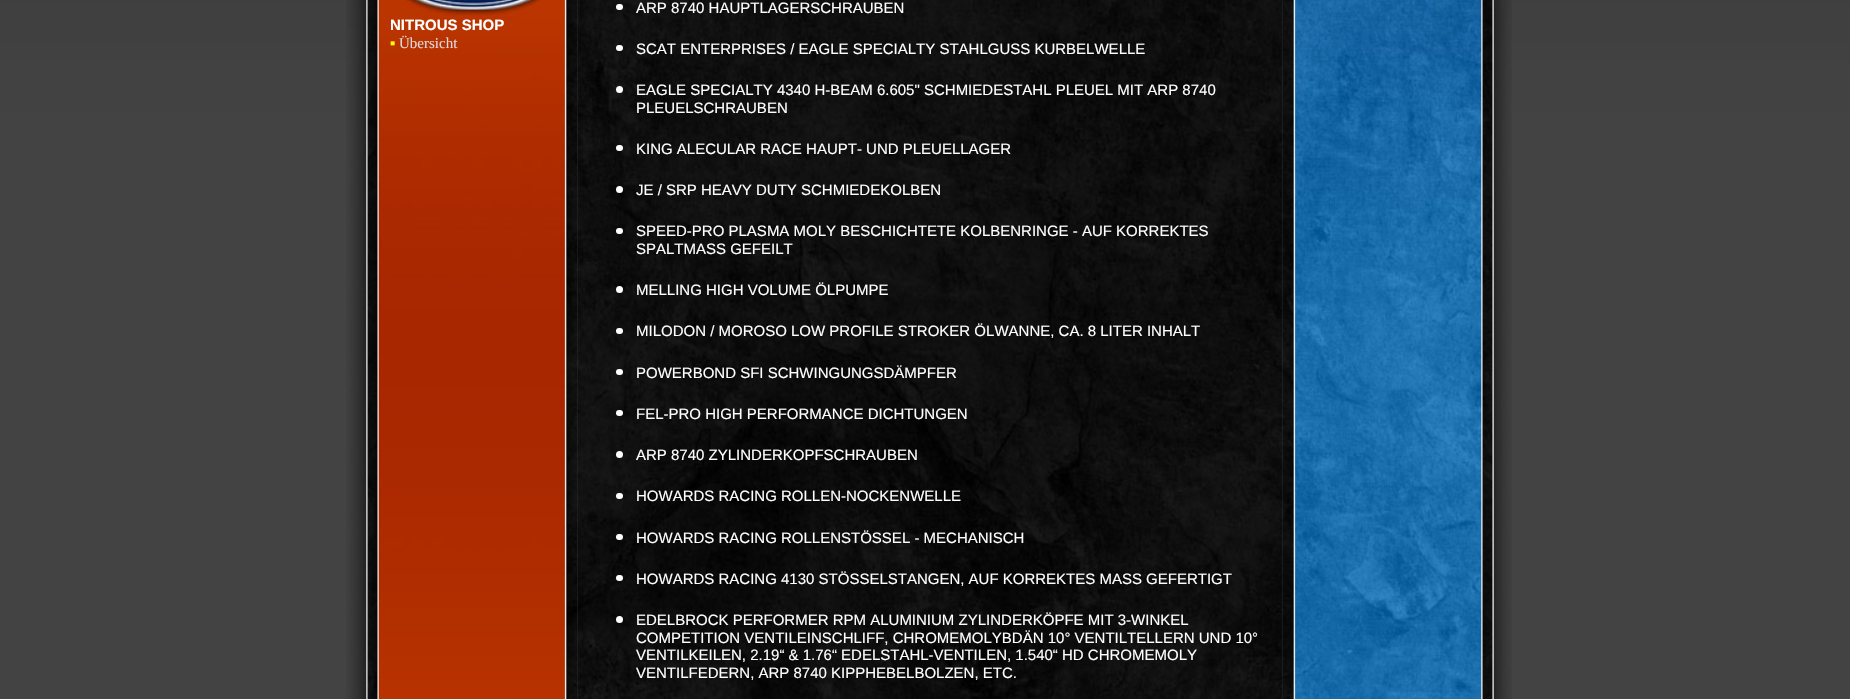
#include "include/core/SkBlurTypes.h"
#include "include/core/SkCanvas.h"
#include "include/core/SkData.h"
#include "include/core/SkFont.h"
#include "include/core/SkFontMgr.h"
#include "include/core/SkImage.h"
#include "include/core/SkMaskFilter.h"
#include "include/core/SkPaint.h"
#include "include/core/SkPathBuilder.h"
#include "include/core/SkTextBlob.h"
#include "include/effects/SkDashPathEffect.h"
#include "include/effects/SkGradientShader.h"
#include "include/utils/SkParsePath.h"

extern sk_sp<SkFontMgr> fontMgr;

void draw(SkCanvas* canvas) {
    SkPaint p;
    p.setAntiAlias(true);
    auto font = [&](const char* family, int weight, float size, bool italic = false) {
        SkFontStyle style(weight, SkFontStyle::kNormal_Width,
            italic ? SkFontStyle::kItalic_Slant : SkFontStyle::kUpright_Slant);
        SkFont result(fontMgr->matchFamilyStyle(family, style), size);
        result.setSubpixel(true);
        return result;
    };
    auto drawPhoto = [&](const char* path, float l, float t, float r, float b) {
        auto image = SkImages::DeferredFromEncodedData(SkData::MakeFromFileName(path));
        canvas->drawImageRect(image, SkRect::MakeLTRB(l, t, r, b), SkSamplingOptions());
    };
    canvas->clear(0xFFFFFFFF);
    drawPhoto("media/1.png", 0, 0, 1850, 699);
    drawPhoto("media/2.png", 346, 0, 578, 699);
    auto font1 = font("Liberation Sans", 700, 15);
    p.setColor(0xFFFFFFFF);
    canvas->drawString("NITROUS SHOP", 390, 30, font1, p);
    auto font2 = font("Liberation Serif", 400, 15);
    p.setColor(0xFFFFFF00);
    canvas->drawString("▪", 390, 48, font2, p);
    p.setColor(0xFFDCDCDC);
    canvas->drawString("Übersicht", 399, 48, font2, p);
    drawPhoto("media/3.png", 577, 0, 1283, 699);
    p.setColor(0xFFFFFFFF);
    canvas->drawRoundRect(SkRect::MakeLTRB(616, 4, 623, 10), 3, 3, p);
    auto font3 = font("Liberation Sans", 400, 15);
    canvas->drawString("ARP 8740 HAUPTLAGERSCHRAUBEN", 636, 13, font3, p);
    canvas->drawRoundRect(SkRect::MakeLTRB(616, 45, 623, 51), 3, 3, p);
    canvas->drawString("SCAT ENTERPRISES / EAGLE SPECIALTY STAHLGUSS KURBELWELLE", 636, 54, font3, p);
    canvas->drawCircle(619.5f, 89.5f, 3.5f, p);
    canvas->drawString("EAGLE SPECIALTY 4340 H-BEAM 6.605\" SCHMIEDESTAHL PLEUEL MIT ARP 8740", 636, 95, font3, p);
    canvas->drawString("PLEUELSCHRAUBEN", 636, 113, font3, p);
    canvas->drawRoundRect(SkRect::MakeLTRB(616, 145, 623, 151), 3, 3, p);
    canvas->drawString("KING ALECULAR RACE HAUPT- UND PLEUELLAGER", 636, 154, font3, p);
    canvas->drawCircle(619.5f, 189.5f, 3.5f, p);
    canvas->drawString("JE / SRP HEAVY DUTY SCHMIEDEKOLBEN", 636, 195, font3, p);
    canvas->drawRoundRect(SkRect::MakeLTRB(616, 228, 623, 234), 3, 3, p);
    canvas->drawString("SPEED-PRO PLASMA MOLY BESCHICHTETE KOLBENRINGE - AUF KORREKTES", 636, 236, font3, p);
    canvas->drawString("SPALTMASS GEFEILT", 636, 254, font3, p);
    canvas->drawCircle(619.5f, 289.5f, 3.5f, p);
    canvas->drawString("MELLING HIGH VOLUME ÖLPUMPE", 636, 295, font3, p);
    canvas->drawRoundRect(SkRect::MakeLTRB(616, 328, 623, 334), 3, 3, p);
    canvas->drawString("MILODON / MOROSO LOW PROFILE STROKER ÖLWANNE, CA. 8 LITER INHALT", 636, 336, font3, p);
    canvas->drawRoundRect(SkRect::MakeLTRB(616, 369, 623, 375), 3, 3, p);
    canvas->drawString("POWERBOND SFI SCHWINGUNGSDÄMPFER", 636, 378, font3, p);
    canvas->drawRoundRect(SkRect::MakeLTRB(616, 410, 623, 416), 3, 3, p);
    canvas->drawString("FEL-PRO HIGH PERFORMANCE DICHTUNGEN", 636, 419, font3, p);
    canvas->drawCircle(619.5f, 454.5f, 3.5f, p);
    canvas->drawString("ARP 8740 ZYLINDERKOPFSCHRAUBEN", 636, 460, font3, p);
    canvas->drawRoundRect(SkRect::MakeLTRB(616, 493, 623, 499), 3, 3, p);
    canvas->drawString("HOWARDS RACING ROLLEN-NOCKENWELLE", 636, 501, font3, p);
    canvas->drawRoundRect(SkRect::MakeLTRB(616, 534, 623, 540), 3, 3, p);
    canvas->drawString("HOWARDS RACING ROLLENSTÖSSEL - MECHANISCH", 636, 543, font3, p);
    canvas->drawRoundRect(SkRect::MakeLTRB(616, 575, 623, 581), 3, 3, p);
    canvas->drawString("HOWARDS RACING 4130 STÖSSELSTANGEN, AUF KORREKTES MASS GEFERTIGT", 636, 584, font3, p);
    canvas->drawCircle(619.5f, 619.5f, 3.5f, p);
    {
        const struct { const char* s; float x, y; } items[] = {
            {"EDELBROCK PERFORMER RPM ALUMINIUM ZYLINDERKÖPFE MIT 3-WINKEL", 636, 625},
            {"COMPETITION VENTILEINSCHLIFF, CHROMEMOLYBDÄN 10° VENTILTELLERN UND 10°", 636, 643},
            {"VENTILKEILEN, 2.19“ & 1.76“ EDELSTAHL-VENTILEN, 1.540“ HD CHROMEMOLY", 636, 660},
            {"VENTILFEDERN, ARP 8740 KIPPHEBELBOLZEN, ETC.", 636, 678},
        };
        for (auto [s, x, y] : items) {
            canvas->drawString(s, x, y, font3, p);
        }
    }
    drawPhoto("media/4.png", 1282, 0, 1512, 699);
}
